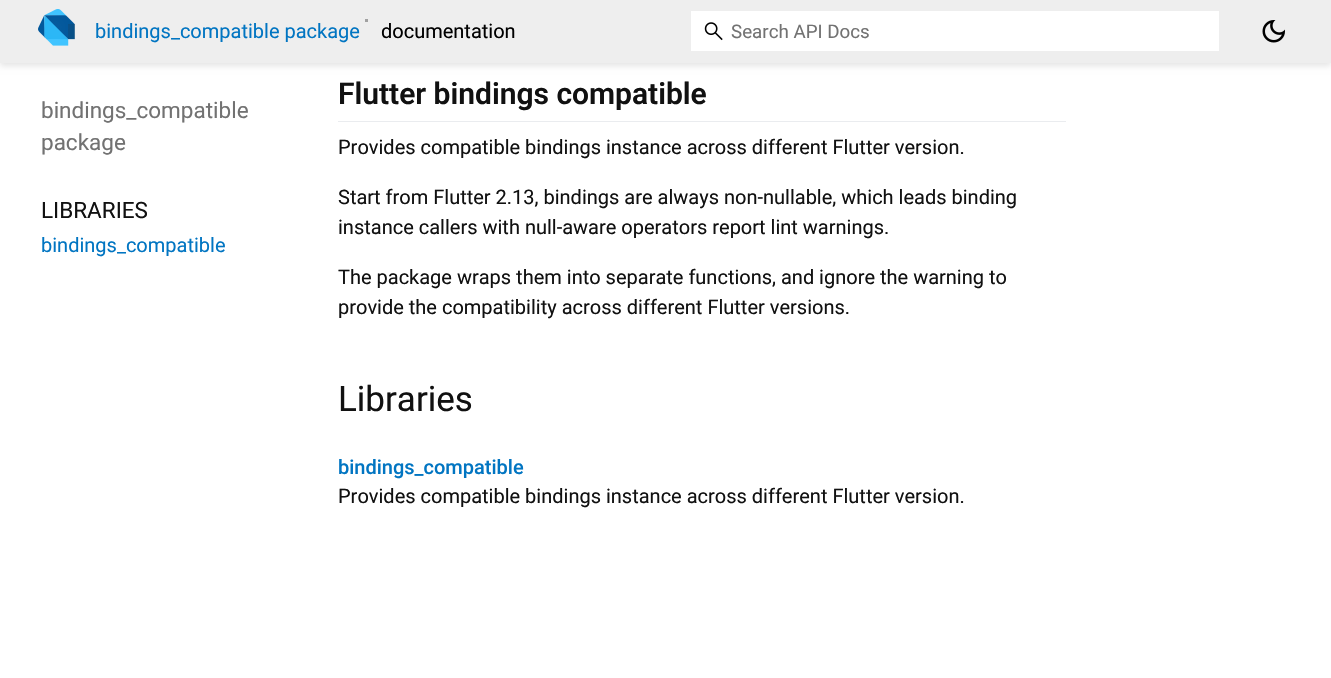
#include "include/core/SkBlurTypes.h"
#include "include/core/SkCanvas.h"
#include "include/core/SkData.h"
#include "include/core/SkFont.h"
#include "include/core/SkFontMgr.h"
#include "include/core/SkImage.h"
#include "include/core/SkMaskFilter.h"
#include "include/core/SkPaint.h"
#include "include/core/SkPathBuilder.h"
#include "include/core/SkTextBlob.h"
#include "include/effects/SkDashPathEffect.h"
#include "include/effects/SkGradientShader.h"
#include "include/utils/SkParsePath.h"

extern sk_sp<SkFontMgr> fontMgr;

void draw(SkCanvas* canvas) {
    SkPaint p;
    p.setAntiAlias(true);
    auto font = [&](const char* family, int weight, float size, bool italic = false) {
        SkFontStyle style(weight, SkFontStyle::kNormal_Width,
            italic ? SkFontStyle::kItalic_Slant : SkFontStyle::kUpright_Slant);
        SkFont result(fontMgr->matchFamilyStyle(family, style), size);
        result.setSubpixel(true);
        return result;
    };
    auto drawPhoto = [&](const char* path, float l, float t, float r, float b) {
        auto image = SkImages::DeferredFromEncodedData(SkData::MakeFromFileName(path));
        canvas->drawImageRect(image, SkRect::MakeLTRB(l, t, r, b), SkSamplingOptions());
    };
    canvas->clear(0xFFFFFFFF);
    p.setColor(0x1A000000);
    p.setMaskFilter(SkMaskFilter::MakeBlur(kNormal_SkBlurStyle, 3));
    canvas->drawRect(SkRect::MakeLTRB(0, 4, 1331, 66), p);
    p.setMaskFilter(nullptr);
    p.setColor(0xFFEEEEEE);
    canvas->drawRect(SkRect::MakeLTRB(0, 0, 1331, 63), p);
    drawPhoto("media/1.png", 38, 9, 75, 46);
    auto font1 = font("Roboto", 400, 20);
    p.setColor(0xFF0175C2);
    canvas->drawString("bindings_compatible package", 95, 38, font1, p);
    p.setColor(0xFFA1A1A1);
    canvas->drawRect(SkRect::MakeLTRB(365, 19, 368, 22), p);
    p.setColor(0xFF000000);
    canvas->drawString("documentation", 381, 38, font1, p);
    p.setColor(0xFFFFFFFF);
    canvas->drawRect(SkRect::MakeLTRB(691, 11, 1219, 51), p);
    drawPhoto("media/2.png", 704, 22, 723, 41);
    auto font2 = font("Roboto", 400, 18.75f);
    p.setColor(0xFF727272);
    canvas->drawString("Search API Docs", 731, 38, font2, p);
    drawPhoto("media/3.png", 1262, 20, 1285, 43);
    auto font3 = font("Roboto", 400, 22.5f);
    canvas->drawString("bindings_compatible", 41, 118, font3, p);
    canvas->drawString("package", 41, 150, font3, p);
    p.setColor(0xFF111111);
    canvas->drawString("LIBRARIES", 41, 218, font3, p);
    p.setColor(0xFF0175C2);
    canvas->drawString("bindings_compatible", 41, 252, font1, p);
    p.setColor(0xFFEAECEF);
    canvas->drawRect(SkRect::MakeLTRB(338, 121, 1066, 122), p);
    auto font4 = font("Roboto", 600, 30);
    p.setColor(0xFF111111);
    canvas->drawString("Flutter bindings compatible", 338, 104, font4, p);
    {
        const struct { const char* s; float x, y; } items[] = {
            {"Provides compatible bindings instance across different Flutter version.", 338, 154},
            {"Start from Flutter 2.13, bindings are always non-nullable, which leads binding", 338, 204},
            {"instance callers with null-aware operators report lint warnings.", 338, 234},
            {"The package wraps them into separate functions, and ignore the warning to", 338, 284},
            {"provide the compatibility across different Flutter versions.", 338, 314},
        };
        for (auto [s, x, y] : items) {
            canvas->drawString(s, x, y, font1, p);
        }
    }
    auto font5 = font("Roboto", 400, 35);
    canvas->drawString("Libraries", 338, 411, font5, p);
    auto font6 = font("Roboto", 500, 20);
    p.setColor(0xFF0175C2);
    canvas->drawString("bindings_compatible", 338, 474, font6, p);
    p.setColor(0xFF111111);
    canvas->drawString("Provides compatible bindings instance across different Flutter version.", 338, 503, font1, p);
}
